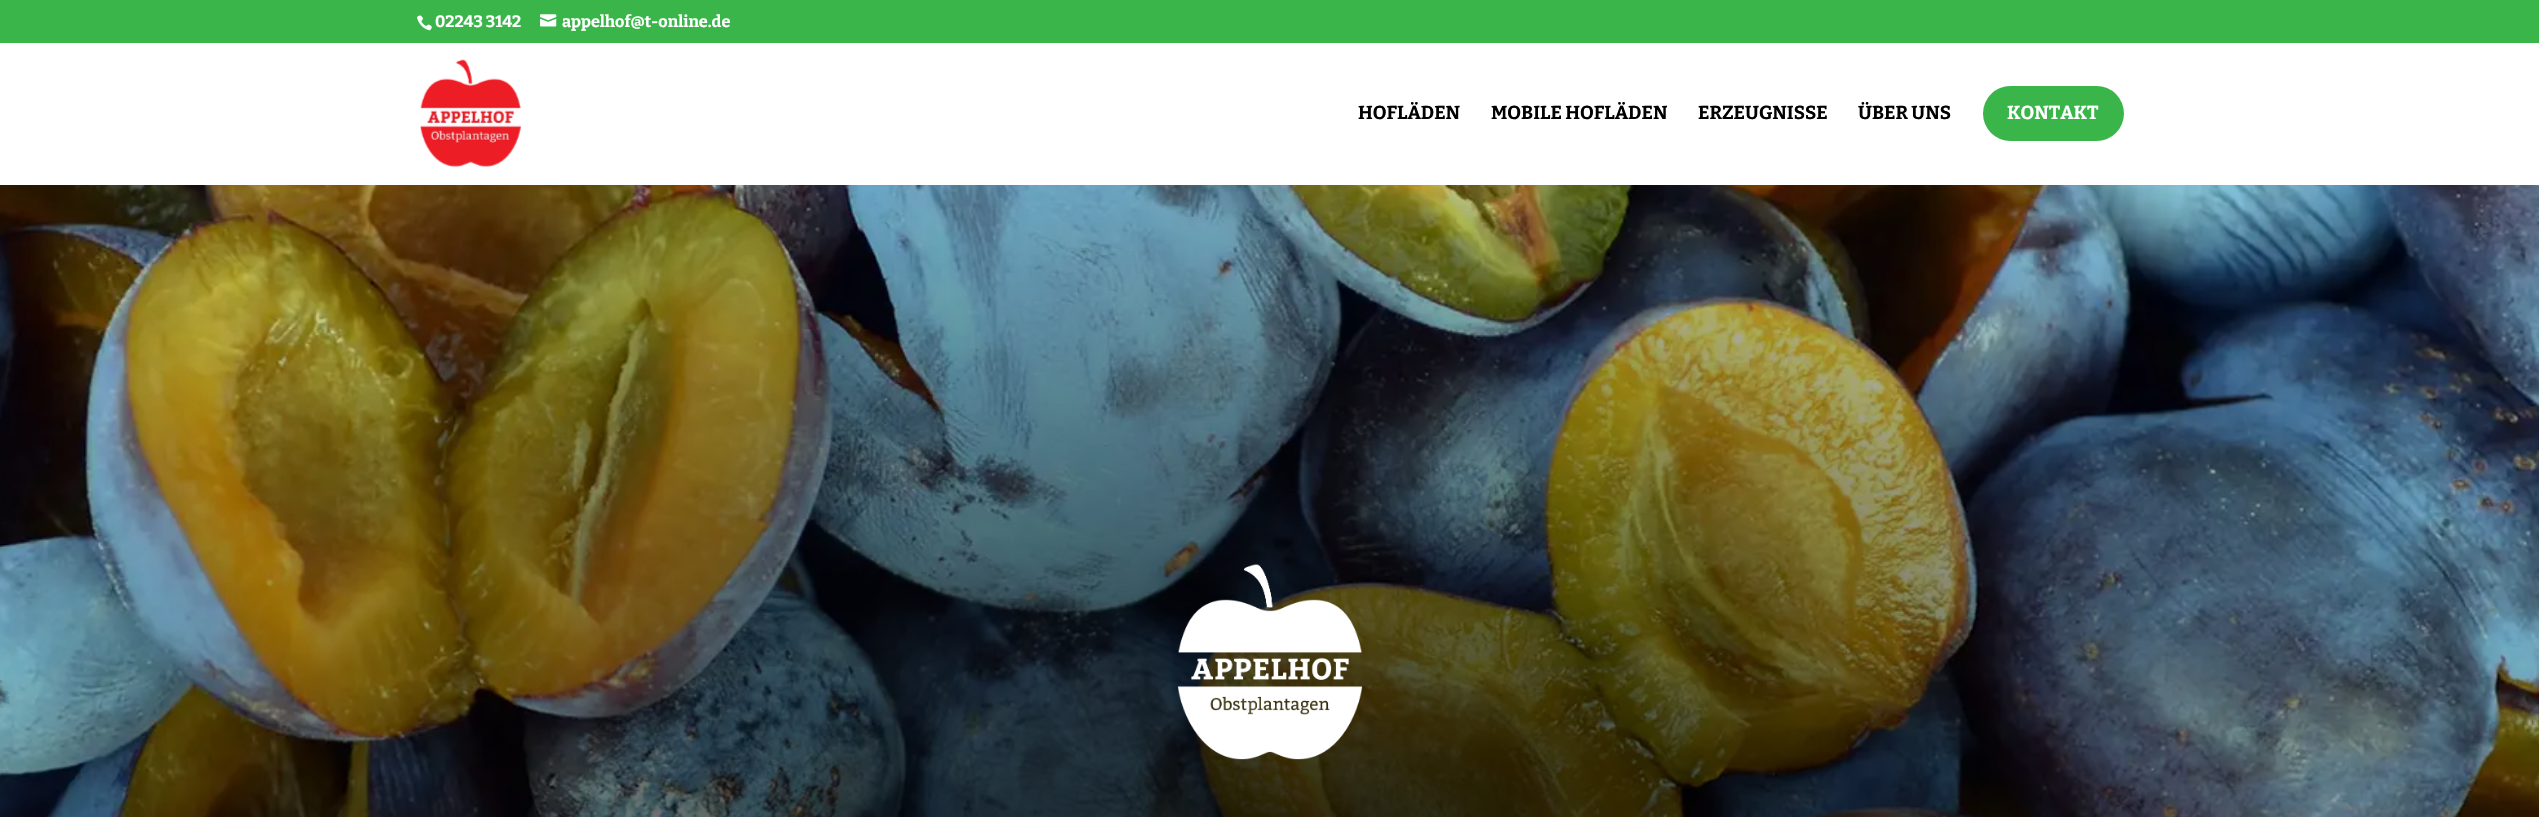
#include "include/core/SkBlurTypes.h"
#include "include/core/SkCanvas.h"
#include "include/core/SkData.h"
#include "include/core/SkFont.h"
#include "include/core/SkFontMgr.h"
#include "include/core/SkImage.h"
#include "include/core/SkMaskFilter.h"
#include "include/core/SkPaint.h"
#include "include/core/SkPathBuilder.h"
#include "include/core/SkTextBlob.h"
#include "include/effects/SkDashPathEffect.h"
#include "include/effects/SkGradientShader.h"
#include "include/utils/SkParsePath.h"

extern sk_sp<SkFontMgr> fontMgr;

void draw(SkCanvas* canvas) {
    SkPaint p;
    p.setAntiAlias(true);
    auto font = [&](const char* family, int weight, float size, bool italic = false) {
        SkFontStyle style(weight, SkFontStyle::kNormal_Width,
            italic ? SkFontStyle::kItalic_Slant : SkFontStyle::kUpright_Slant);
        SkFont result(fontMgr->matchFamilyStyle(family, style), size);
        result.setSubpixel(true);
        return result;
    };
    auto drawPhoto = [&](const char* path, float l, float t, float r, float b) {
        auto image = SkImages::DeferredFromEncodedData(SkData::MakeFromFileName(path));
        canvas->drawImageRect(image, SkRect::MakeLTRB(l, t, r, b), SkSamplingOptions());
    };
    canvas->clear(0xFFFFFFFF);
    p.setColor(0xFF39B54A);
    canvas->drawRect(SkRect::MakeLTRB(0, 0, 2539, 43), p);
    drawPhoto("media/1.png", 416, 15, 432, 31);
    auto font1 = font("Bitter", 700, 16.25f);
    p.setColor(0xFFFFFFFF);
    canvas->drawString("02243 3142", 435, 27, font1, p);
    drawPhoto("media/2.png", 540, 14, 557, 27);
    canvas->drawString("appelhof@t-online.de", 562, 27, font1, p);
    drawPhoto("media/3.png", 420, 59, 522, 167);
    auto font2 = font("Bitter", 700, 18.75f);
    p.setColor(0xFF000000);
    {
        const struct { const char* s; float x, y; } items[] = {
            {"HOFLÄDEN", 1358, 119},
            {"MOBILE HOFLÄDEN", 1491, 119},
            {"ERZEUGNISSE", 1698, 119},
            {"ÜBER UNS", 1858, 119},
        };
        for (auto [s, x, y] : items) {
            canvas->drawString(s, x, y, font2, p);
        }
    }
    p.setColor(0xFF39B54A);
    canvas->drawRoundRect(SkRect::MakeLTRB(1983, 86, 2124, 141), 27.5f, 27.5f, p);
    p.setColor(0xFFFFFFFF);
    canvas->drawString("KONTAKT", 2007, 119, font2, p);
    drawPhoto("media/4.png", 0, 185, 2539, 817);
    drawPhoto("media/5.png", 1178, 564, 1363, 760);
}
